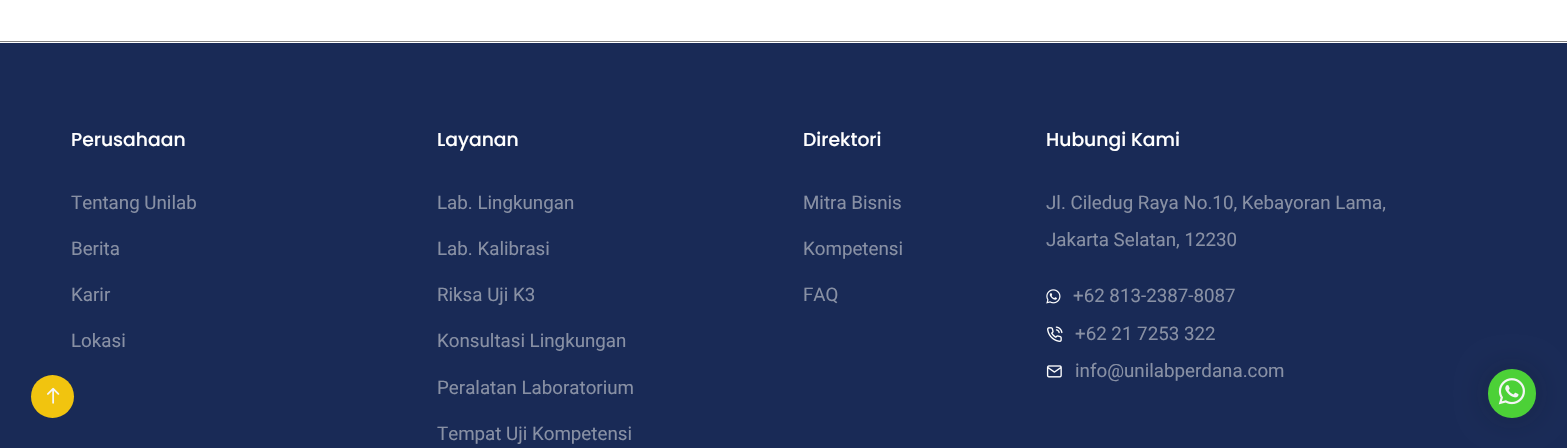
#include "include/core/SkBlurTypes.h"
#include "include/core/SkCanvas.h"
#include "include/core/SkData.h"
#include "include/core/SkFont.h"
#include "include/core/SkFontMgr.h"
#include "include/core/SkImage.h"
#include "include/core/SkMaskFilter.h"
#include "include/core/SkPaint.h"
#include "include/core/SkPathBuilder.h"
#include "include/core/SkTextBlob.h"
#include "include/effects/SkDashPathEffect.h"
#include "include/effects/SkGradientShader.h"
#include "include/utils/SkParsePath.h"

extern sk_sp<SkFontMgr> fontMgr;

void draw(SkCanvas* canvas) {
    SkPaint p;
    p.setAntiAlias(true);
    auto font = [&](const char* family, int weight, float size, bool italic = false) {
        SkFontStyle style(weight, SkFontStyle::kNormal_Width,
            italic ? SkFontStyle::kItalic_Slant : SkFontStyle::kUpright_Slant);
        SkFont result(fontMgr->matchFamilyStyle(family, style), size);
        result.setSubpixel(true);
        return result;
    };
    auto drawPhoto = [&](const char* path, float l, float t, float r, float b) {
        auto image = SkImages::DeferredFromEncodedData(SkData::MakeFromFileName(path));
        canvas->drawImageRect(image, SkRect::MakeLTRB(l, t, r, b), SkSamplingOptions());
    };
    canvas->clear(0xFFFFFFFF);
    p.setColor(0xFF828282);
    canvas->drawRect(SkRect::MakeLTRB(0, 41, 1567, 42), p);
    p.setColor(0xFF192A56);
    canvas->drawRect(SkRect::MakeLTRB(0, 43, 1567, 448), p);
    p.setColor(0xFFF1C40F);
    canvas->drawCircle(52.5f, 396.5f, 21.5f, p);
    drawPhoto("media/1.png", 47, 387, 60, 404);
    auto font1 = font("Poppins", 500, 18.75f);
    p.setColor(0xFFFFFFFF);
    canvas->drawString("Perusahaan", 71, 146, font1, p);
    auto font2 = font("Roboto", 400, 18.75f);
    p.setColor(0xFF8890A4);
    {
        const struct { const char* s; float x, y; } items[] = {
            {"Tentang Unilab", 71, 209},
            {"Berita", 71, 255},
            {"Karir", 71, 301},
            {"Lokasi", 71, 347},
        };
        for (auto [s, x, y] : items) {
            canvas->drawString(s, x, y, font2, p);
        }
    }
    p.setColor(0xFFFFFFFF);
    canvas->drawString("Layanan", 437, 146, font1, p);
    p.setColor(0xFF8890A4);
    {
        const struct { const char* s; float x, y; } items[] = {
            {"Lab. Lingkungan", 437, 209},
            {"Lab. Kalibrasi", 437, 255},
            {"Riksa Uji K3", 437, 301},
            {"Konsultasi Lingkungan", 437, 347},
            {"Peralatan Laboratorium", 437, 394},
            {"Tempat Uji Kompetensi", 437, 440},
        };
        for (auto [s, x, y] : items) {
            canvas->drawString(s, x, y, font2, p);
        }
    }
    p.setColor(0xFFFFFFFF);
    canvas->drawString("Direktori", 803, 146, font1, p);
    p.setColor(0xFF8890A4);
    {
        const struct { const char* s; float x, y; } items[] = {
            {"Mitra Bisnis", 803, 209},
            {"Kompetensi", 803, 255},
            {"FAQ", 803, 301},
        };
        for (auto [s, x, y] : items) {
            canvas->drawString(s, x, y, font2, p);
        }
    }
    p.setColor(0xFFFFFFFF);
    canvas->drawString("Hubungi Kami", 1046, 146, font1, p);
    p.setColor(0xFF8890A4);
    canvas->drawString("Jl. Ciledug Raya No.10, Kebayoran Lama,", 1046, 209, font2, p);
    canvas->drawString("Jakarta Selatan, 12230", 1046, 246, font2, p);
    drawPhoto("media/2.png", 1046, 289, 1061, 304);
    canvas->drawString("+62 813-2387-8087", 1073, 302, font2, p);
    drawPhoto("media/3.png", 1047, 326, 1063, 342);
    canvas->drawString("+62 21 7253 322", 1075, 340, font2, p);
    drawPhoto("media/4.png", 1046, 365, 1062, 378);
    canvas->drawString("info@unilabperdana.com", 1075, 377, font2, p);
    p.setColor(0x40171717);
    p.setMaskFilter(SkMaskFilter::MakeBlur(kNormal_SkBlurStyle, 15.5f));
    canvas->drawRoundRect(SkRect::MakeLTRB(1488, 369, 1536, 418), 24, 24, p);
    p.setMaskFilter(nullptr);
    p.setColor(0xFF4CD137);
    canvas->drawRoundRect(SkRect::MakeLTRB(1488, 369, 1536, 418), 24, 24, p);
    drawPhoto("media/5.png", 1498, 378, 1525, 405);
}
